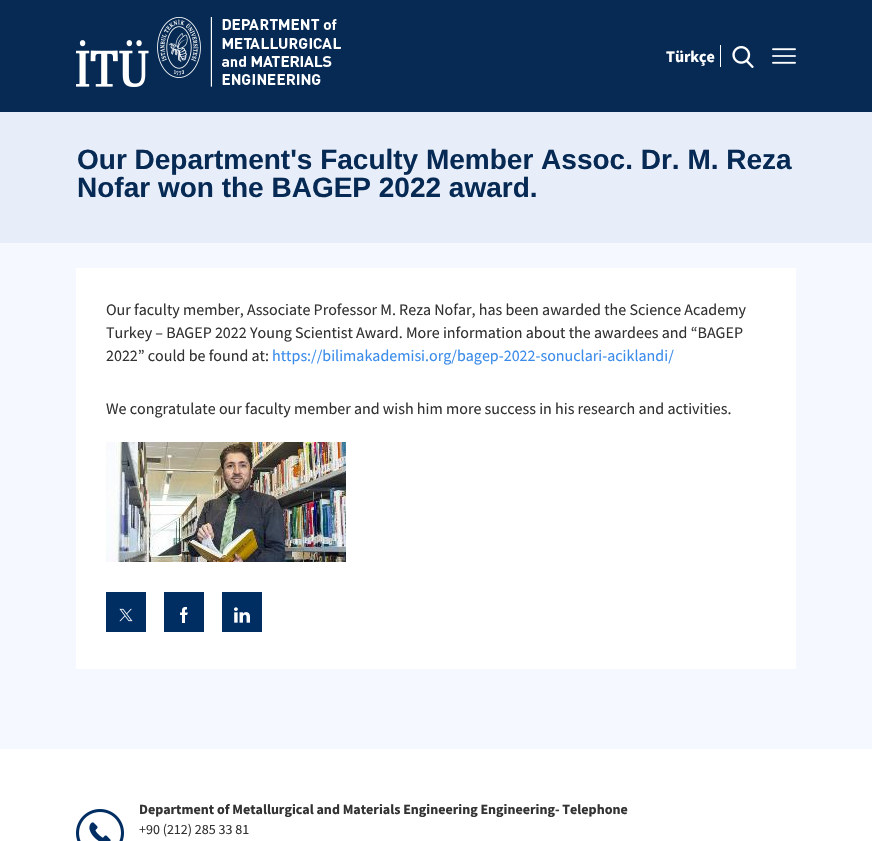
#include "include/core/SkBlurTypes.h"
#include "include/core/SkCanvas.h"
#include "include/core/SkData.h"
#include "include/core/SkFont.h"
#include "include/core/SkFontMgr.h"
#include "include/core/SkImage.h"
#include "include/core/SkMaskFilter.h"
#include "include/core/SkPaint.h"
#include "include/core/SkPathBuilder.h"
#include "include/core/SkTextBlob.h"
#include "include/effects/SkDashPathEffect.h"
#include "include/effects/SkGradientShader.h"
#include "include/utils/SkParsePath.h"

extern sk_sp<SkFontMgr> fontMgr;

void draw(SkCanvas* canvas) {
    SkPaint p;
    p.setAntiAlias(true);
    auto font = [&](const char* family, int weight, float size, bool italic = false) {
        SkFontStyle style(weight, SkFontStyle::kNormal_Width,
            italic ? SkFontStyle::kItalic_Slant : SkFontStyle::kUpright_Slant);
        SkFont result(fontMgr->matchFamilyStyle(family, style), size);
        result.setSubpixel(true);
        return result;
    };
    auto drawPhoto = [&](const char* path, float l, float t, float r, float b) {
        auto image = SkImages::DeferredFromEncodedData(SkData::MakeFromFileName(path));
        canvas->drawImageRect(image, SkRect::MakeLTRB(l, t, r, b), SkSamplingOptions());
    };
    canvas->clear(0xFFF5F8FE);
    p.setColor(0xFF062A54);
    canvas->drawRect(SkRect::MakeLTRB(0, 0, 872, 112), p);
    drawPhoto("media/1.png", 76, 17, 341, 87);
    auto font1 = font("Source Sans Pro", 700, 16);
    p.setColor(0xFFFFFFFF);
    canvas->drawString("Türkçe", 666, 62, font1, p);
    canvas->drawRect(SkRect::MakeLTRB(720, 45, 721, 67), p);
    drawPhoto("media/2.png", 732, 46, 754, 68);
    drawPhoto("media/3.png", 772, 48, 796, 64);
    p.setColor(0xFFE7EDF9);
    canvas->drawRect(SkRect::MakeLTRB(0, 112, 872, 243), p);
    auto font2 = font("Liberation Sans", 700, 28);
    p.setColor(0xFF062A54);
    canvas->drawString("Our Department's Faculty Member Assoc. Dr. M. Reza", 77, 169, font2, p);
    canvas->drawString("Nofar won the BAGEP 2022 award.", 77, 197, font2, p);
    p.setColor(0xFFFFFFFF);
    canvas->drawRect(SkRect::MakeLTRB(76, 268, 796, 669), p);
    auto font3 = font("Source Sans Pro", 400, 16);
    p.setColor(0xFF333333);
    {
        const struct { const char* s; float x, y; } items[] = {
            {"Our faculty member, Associate Professor M. Reza Nofar, has been awarded the Science Academy", 106, 315},
            {"Turkey – BAGEP 2022 Young Scientist Award. More information about the awardees and “BAGEP", 106, 338},
            {"2022” could be found at:", 106, 361},
        };
        for (auto [s, x, y] : items) {
            canvas->drawString(s, x, y, font3, p);
        }
    }
    p.setColor(0xFF3B8CEA);
    canvas->drawString("https://bilimakademisi.org/bagep-2022-sonuclari-aciklandi/", 272, 361, font3, p);
    p.setColor(0xFF333333);
    canvas->drawString("We congratulate our faculty member and wish him more success in his research and activities.", 106, 414, font3, p);
    drawPhoto("media/4.png", 106, 442, 346, 562);
    p.setColor(0xFF002D62);
    canvas->drawRect(SkRect::MakeLTRB(106, 592, 146, 632), p);
    drawPhoto("media/5.png", 119, 608, 133, 622);
    canvas->drawRect(SkRect::MakeLTRB(164, 592, 204, 632), p);
    drawPhoto("media/6.png", 180, 607, 188, 623);
    canvas->drawRect(SkRect::MakeLTRB(222, 592, 262, 632), p);
    drawPhoto("media/7.png", 234, 607, 250, 623);
    p.setColor(0xFFFFFFFF);
    canvas->drawRect(SkRect::MakeLTRB(0, 749, 872, 841), p);
    drawPhoto("media/8.png", 76, 809, 124, 841);
    auto font4 = font("Source Sans Pro", 700, 14);
    p.setColor(0xFF333333);
    canvas->drawString("Department of Metallurgical and Materials Engineering Engineering- Telephone", 139, 814, font4, p);
    auto font5 = font("Source Sans Pro", 400, 14);
    canvas->drawString("+90 (212) 285 33 81", 139, 834, font5, p);
}
